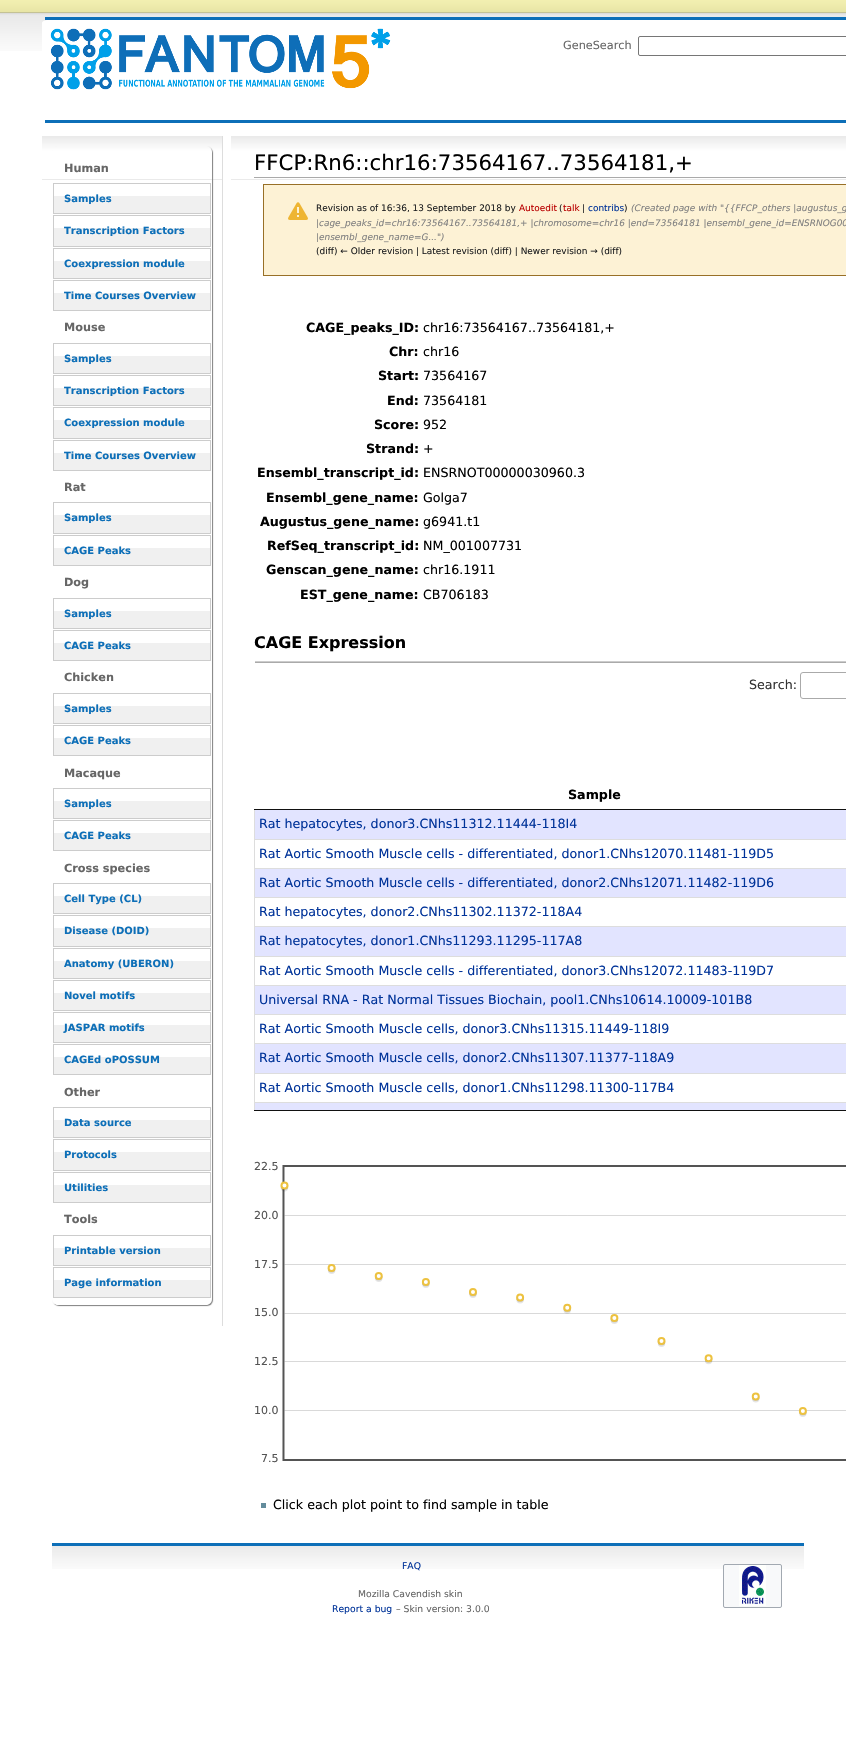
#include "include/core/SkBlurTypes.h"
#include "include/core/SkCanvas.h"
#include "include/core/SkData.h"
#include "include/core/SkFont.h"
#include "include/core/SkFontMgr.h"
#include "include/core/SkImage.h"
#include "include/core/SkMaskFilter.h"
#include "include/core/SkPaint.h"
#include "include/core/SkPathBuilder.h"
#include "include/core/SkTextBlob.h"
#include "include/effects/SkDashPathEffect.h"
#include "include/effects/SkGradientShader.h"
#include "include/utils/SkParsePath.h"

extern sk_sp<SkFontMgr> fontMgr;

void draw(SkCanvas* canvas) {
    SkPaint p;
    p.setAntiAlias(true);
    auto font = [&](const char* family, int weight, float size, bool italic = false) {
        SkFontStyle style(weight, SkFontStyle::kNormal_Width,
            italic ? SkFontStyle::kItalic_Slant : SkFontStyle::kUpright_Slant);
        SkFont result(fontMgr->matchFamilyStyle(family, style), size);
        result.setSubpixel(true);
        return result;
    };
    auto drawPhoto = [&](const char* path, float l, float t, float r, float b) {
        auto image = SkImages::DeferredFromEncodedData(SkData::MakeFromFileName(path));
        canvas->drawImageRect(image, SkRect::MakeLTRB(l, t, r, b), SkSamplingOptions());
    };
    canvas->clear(0xFFFFFFFF);
    drawPhoto("media/1.png", 0, 0, 846, 51);
    p.setColor(0xFFFFFFFF);
    canvas->drawPath(SkPathBuilder().moveTo(48, 20).lineTo(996, 20).cubicTo(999, 20, 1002, 21, 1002, 23).lineTo(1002, 117).cubicTo(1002, 119, 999, 120, 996, 120).lineTo(48, 120).cubicTo(45, 120, 42, 119, 42, 117).lineTo(42, 23).cubicTo(42, 21, 45, 20, 48, 20).close().detach(), p);
    drawPhoto("media/2.png", 50, 28, 391, 90);
    p.setColor(0xFF0D6FB8);
    canvas->drawRect(SkRect::MakeLTRB(45, 17, 846, 20), p);
    canvas->drawRect(SkRect::MakeLTRB(45, 120, 846, 123), p);
    auto font1 = font("DejaVu Sans", 400, 11.25f);
    p.setColor(0xFF666666);
    canvas->drawString("GeneSearch", 563, 49, font1, p);
    p.setStyle(SkPaint::kStroke_Style);
    p.setStrokeWidth(1);
    p.setColor(0xFF767676);
    canvas->drawRoundRect(SkRect::MakeLTRB(638.5f, 36.5f, 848.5f, 55.5f), 1.5f, 1.5f, p);
    drawPhoto("media/3.png", 42, 136, 222, 180);
    p.setStyle(SkPaint::kFill_Style);
    p.setColor(0xFFDDDDDD);
    canvas->drawRect(SkRect::MakeLTRB(222, 136, 223, 1326), p);
    canvas->save();
    canvas->clipPath(SkPathBuilder(SkPathFillType::kEvenOdd).moveTo(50, 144).lineTo(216, 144).lineTo(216, 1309).lineTo(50, 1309).close().moveTo(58, 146).lineTo(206, 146).cubicTo(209.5f, 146, 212, 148.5f, 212, 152).lineTo(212, 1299).cubicTo(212, 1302.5f, 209.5f, 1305, 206, 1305).lineTo(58, 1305).cubicTo(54.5f, 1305, 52, 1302.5f, 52, 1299).lineTo(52, 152).cubicTo(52, 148.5f, 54.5f, 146, 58, 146).close().detach(), true);
    p.setColor(0xFF808080);
    p.setMaskFilter(SkMaskFilter::MakeBlur(kNormal_SkBlurStyle, 0.5f));
    canvas->drawRoundRect(SkRect::MakeLTRB(53, 147, 213, 1306), 6, 6, p);
    p.setMaskFilter(nullptr);
    canvas->restore();
    auto font2 = font("DejaVu Sans", 700, 11.25f);
    p.setColor(0xFF666666);
    canvas->drawString("Human", 64, 172, font2, p);
    p.setColor(0xFFF0F0F0);
    canvas->drawRect(SkRect::MakeLTRB(54, 196, 210, 213), p);
    p.setStyle(SkPaint::kStroke_Style);
    p.setColor(0xFFCCCCCC);
    canvas->drawRect(SkRect::MakeLTRB(53.5f, 183.5f, 210.5f, 213.5f), p);
    auto font3 = font("DejaVu Sans", 700, 10);
    p.setStyle(SkPaint::kFill_Style);
    p.setColor(0xFF0D6FB8);
    canvas->drawString("Samples", 64, 202, font3, p);
    p.setColor(0xFFF0F0F0);
    canvas->drawRect(SkRect::MakeLTRB(54, 228, 210, 246), p);
    p.setStyle(SkPaint::kStroke_Style);
    p.setColor(0xFFCCCCCC);
    canvas->drawRect(SkRect::MakeLTRB(53.5f, 215.5f, 210.5f, 246.5f), p);
    p.setStyle(SkPaint::kFill_Style);
    p.setColor(0xFF0D6FB8);
    canvas->drawString("Transcription Factors", 64, 234, font3, p);
    p.setColor(0xFFF0F0F0);
    canvas->drawRect(SkRect::MakeLTRB(54, 261, 210, 278), p);
    p.setStyle(SkPaint::kStroke_Style);
    p.setColor(0xFFCCCCCC);
    canvas->drawRect(SkRect::MakeLTRB(53.5f, 248.5f, 210.5f, 278.5f), p);
    p.setStyle(SkPaint::kFill_Style);
    p.setColor(0xFF0D6FB8);
    canvas->drawString("Coexpression module", 64, 267, font3, p);
    p.setColor(0xFFF0F0F0);
    canvas->drawRect(SkRect::MakeLTRB(54, 293, 210, 310), p);
    p.setStyle(SkPaint::kStroke_Style);
    p.setColor(0xFFCCCCCC);
    canvas->drawRect(SkRect::MakeLTRB(53.5f, 280.5f, 210.5f, 310.5f), p);
    p.setStyle(SkPaint::kFill_Style);
    p.setColor(0xFF0D6FB8);
    canvas->drawString("Time Courses Overview", 64, 299, font3, p);
    p.setColor(0xFF666666);
    canvas->drawString("Mouse", 64, 331, font2, p);
    p.setColor(0xFFF0F0F0);
    canvas->drawRect(SkRect::MakeLTRB(54, 356, 210, 373), p);
    p.setStyle(SkPaint::kStroke_Style);
    p.setColor(0xFFCCCCCC);
    canvas->drawRect(SkRect::MakeLTRB(53.5f, 343.5f, 210.5f, 373.5f), p);
    p.setStyle(SkPaint::kFill_Style);
    p.setColor(0xFF0D6FB8);
    canvas->drawString("Samples", 64, 362, font3, p);
    p.setColor(0xFFF0F0F0);
    canvas->drawRect(SkRect::MakeLTRB(54, 388, 210, 405), p);
    p.setStyle(SkPaint::kStroke_Style);
    p.setColor(0xFFCCCCCC);
    canvas->drawRect(SkRect::MakeLTRB(53.5f, 375.5f, 210.5f, 405.5f), p);
    p.setStyle(SkPaint::kFill_Style);
    p.setColor(0xFF0D6FB8);
    canvas->drawString("Transcription Factors", 64, 394, font3, p);
    p.setColor(0xFFF0F0F0);
    canvas->drawRect(SkRect::MakeLTRB(54, 420, 210, 438), p);
    p.setStyle(SkPaint::kStroke_Style);
    p.setColor(0xFFCCCCCC);
    canvas->drawRect(SkRect::MakeLTRB(53.5f, 407.5f, 210.5f, 438.5f), p);
    p.setStyle(SkPaint::kFill_Style);
    p.setColor(0xFF0D6FB8);
    canvas->drawString("Coexpression module", 64, 426, font3, p);
    p.setColor(0xFFF0F0F0);
    canvas->drawRect(SkRect::MakeLTRB(54, 453, 210, 470), p);
    p.setStyle(SkPaint::kStroke_Style);
    p.setColor(0xFFCCCCCC);
    canvas->drawRect(SkRect::MakeLTRB(53.5f, 440.5f, 210.5f, 470.5f), p);
    p.setStyle(SkPaint::kFill_Style);
    p.setColor(0xFF0D6FB8);
    canvas->drawString("Time Courses Overview", 64, 459, font3, p);
    p.setColor(0xFF666666);
    canvas->drawString("Rat", 64, 491, font2, p);
    p.setColor(0xFFF0F0F0);
    canvas->drawRect(SkRect::MakeLTRB(54, 515, 210, 533), p);
    p.setStyle(SkPaint::kStroke_Style);
    p.setColor(0xFFCCCCCC);
    canvas->drawRect(SkRect::MakeLTRB(53.5f, 502.5f, 210.5f, 533.5f), p);
    p.setStyle(SkPaint::kFill_Style);
    p.setColor(0xFF0D6FB8);
    canvas->drawString("Samples", 64, 521, font3, p);
    p.setColor(0xFFF0F0F0);
    canvas->drawRect(SkRect::MakeLTRB(54, 548, 210, 565), p);
    p.setStyle(SkPaint::kStroke_Style);
    p.setColor(0xFFCCCCCC);
    canvas->drawRect(SkRect::MakeLTRB(53.5f, 535.5f, 210.5f, 565.5f), p);
    p.setStyle(SkPaint::kFill_Style);
    p.setColor(0xFF0D6FB8);
    canvas->drawString("CAGE Peaks", 64, 554, font3, p);
    p.setColor(0xFF666666);
    canvas->drawString("Dog", 64, 586, font2, p);
    p.setColor(0xFFF0F0F0);
    canvas->drawRect(SkRect::MakeLTRB(54, 611, 210, 628), p);
    p.setStyle(SkPaint::kStroke_Style);
    p.setColor(0xFFCCCCCC);
    canvas->drawRect(SkRect::MakeLTRB(53.5f, 598.5f, 210.5f, 628.5f), p);
    p.setStyle(SkPaint::kFill_Style);
    p.setColor(0xFF0D6FB8);
    canvas->drawString("Samples", 64, 617, font3, p);
    p.setColor(0xFFF0F0F0);
    canvas->drawRect(SkRect::MakeLTRB(54, 643, 210, 660), p);
    p.setStyle(SkPaint::kStroke_Style);
    p.setColor(0xFFCCCCCC);
    canvas->drawRect(SkRect::MakeLTRB(53.5f, 630.5f, 210.5f, 660.5f), p);
    p.setStyle(SkPaint::kFill_Style);
    p.setColor(0xFF0D6FB8);
    canvas->drawString("CAGE Peaks", 64, 649, font3, p);
    p.setColor(0xFF666666);
    canvas->drawString("Chicken", 64, 681, font2, p);
    p.setColor(0xFFF0F0F0);
    canvas->drawRect(SkRect::MakeLTRB(54, 706, 210, 723), p);
    p.setStyle(SkPaint::kStroke_Style);
    p.setColor(0xFFCCCCCC);
    canvas->drawRect(SkRect::MakeLTRB(53.5f, 693.5f, 210.5f, 723.5f), p);
    p.setStyle(SkPaint::kFill_Style);
    p.setColor(0xFF0D6FB8);
    canvas->drawString("Samples", 64, 712, font3, p);
    p.setColor(0xFFF0F0F0);
    canvas->drawRect(SkRect::MakeLTRB(54, 738, 210, 755), p);
    p.setStyle(SkPaint::kStroke_Style);
    p.setColor(0xFFCCCCCC);
    canvas->drawRect(SkRect::MakeLTRB(53.5f, 725.5f, 210.5f, 755.5f), p);
    p.setStyle(SkPaint::kFill_Style);
    p.setColor(0xFF0D6FB8);
    canvas->drawString("CAGE Peaks", 64, 744, font3, p);
    p.setColor(0xFF666666);
    canvas->drawString("Macaque", 64, 777, font2, p);
    p.setColor(0xFFF0F0F0);
    canvas->drawRect(SkRect::MakeLTRB(54, 801, 210, 818), p);
    p.setStyle(SkPaint::kStroke_Style);
    p.setColor(0xFFCCCCCC);
    canvas->drawRect(SkRect::MakeLTRB(53.5f, 788.5f, 210.5f, 818.5f), p);
    p.setStyle(SkPaint::kFill_Style);
    p.setColor(0xFF0D6FB8);
    canvas->drawString("Samples", 64, 807, font3, p);
    p.setColor(0xFFF0F0F0);
    canvas->drawRect(SkRect::MakeLTRB(54, 833, 210, 850), p);
    p.setStyle(SkPaint::kStroke_Style);
    p.setColor(0xFFCCCCCC);
    canvas->drawRect(SkRect::MakeLTRB(53.5f, 820.5f, 210.5f, 850.5f), p);
    p.setStyle(SkPaint::kFill_Style);
    p.setColor(0xFF0D6FB8);
    canvas->drawString("CAGE Peaks", 64, 839, font3, p);
    p.setColor(0xFF666666);
    canvas->drawString("Cross species", 64, 872, font2, p);
    p.setColor(0xFFF0F0F0);
    canvas->drawRect(SkRect::MakeLTRB(54, 896, 210, 913), p);
    p.setStyle(SkPaint::kStroke_Style);
    p.setColor(0xFFCCCCCC);
    canvas->drawRect(SkRect::MakeLTRB(53.5f, 883.5f, 210.5f, 913.5f), p);
    p.setStyle(SkPaint::kFill_Style);
    p.setColor(0xFF0D6FB8);
    canvas->drawString("Cell Type (CL)", 64, 902, font3, p);
    p.setColor(0xFFF0F0F0);
    canvas->drawRect(SkRect::MakeLTRB(54, 928, 210, 946), p);
    p.setStyle(SkPaint::kStroke_Style);
    p.setColor(0xFFCCCCCC);
    canvas->drawRect(SkRect::MakeLTRB(53.5f, 915.5f, 210.5f, 946.5f), p);
    p.setStyle(SkPaint::kFill_Style);
    p.setColor(0xFF0D6FB8);
    canvas->drawString("Disease (DOID)", 64, 934, font3, p);
    p.setColor(0xFFF0F0F0);
    canvas->drawRect(SkRect::MakeLTRB(54, 961, 210, 978), p);
    p.setStyle(SkPaint::kStroke_Style);
    p.setColor(0xFFCCCCCC);
    canvas->drawRect(SkRect::MakeLTRB(53.5f, 948.5f, 210.5f, 978.5f), p);
    p.setStyle(SkPaint::kFill_Style);
    p.setColor(0xFF0D6FB8);
    canvas->drawString("Anatomy (UBERON)", 64, 967, font3, p);
    p.setColor(0xFFF0F0F0);
    canvas->drawRect(SkRect::MakeLTRB(54, 993, 210, 1010), p);
    p.setStyle(SkPaint::kStroke_Style);
    p.setColor(0xFFCCCCCC);
    canvas->drawRect(SkRect::MakeLTRB(53.5f, 980.5f, 210.5f, 1010.5f), p);
    p.setStyle(SkPaint::kFill_Style);
    p.setColor(0xFF0D6FB8);
    canvas->drawString("Novel motifs", 64, 999, font3, p);
    p.setColor(0xFFF0F0F0);
    canvas->drawRect(SkRect::MakeLTRB(54, 1025, 210, 1042), p);
    p.setStyle(SkPaint::kStroke_Style);
    p.setColor(0xFFCCCCCC);
    canvas->drawRect(SkRect::MakeLTRB(53.5f, 1012.5f, 210.5f, 1042.5f), p);
    p.setStyle(SkPaint::kFill_Style);
    p.setColor(0xFF0D6FB8);
    canvas->drawString("JASPAR motifs", 64, 1031, font3, p);
    p.setColor(0xFFF0F0F0);
    canvas->drawRect(SkRect::MakeLTRB(54, 1057, 210, 1074), p);
    p.setStyle(SkPaint::kStroke_Style);
    p.setColor(0xFFCCCCCC);
    canvas->drawRect(SkRect::MakeLTRB(53.5f, 1044.5f, 210.5f, 1074.5f), p);
    p.setStyle(SkPaint::kFill_Style);
    p.setColor(0xFF0D6FB8);
    canvas->drawString("CAGEd oPOSSUM", 64, 1063, font3, p);
    p.setColor(0xFF666666);
    canvas->drawString("Other", 64, 1096, font2, p);
    p.setColor(0xFFF0F0F0);
    canvas->drawRect(SkRect::MakeLTRB(54, 1120, 210, 1137), p);
    p.setStyle(SkPaint::kStroke_Style);
    p.setColor(0xFFCCCCCC);
    canvas->drawRect(SkRect::MakeLTRB(53.5f, 1107.5f, 210.5f, 1137.5f), p);
    p.setStyle(SkPaint::kFill_Style);
    p.setColor(0xFF0D6FB8);
    canvas->drawString("Data source", 64, 1126, font3, p);
    p.setColor(0xFFF0F0F0);
    canvas->drawRect(SkRect::MakeLTRB(54, 1152, 210, 1170), p);
    p.setStyle(SkPaint::kStroke_Style);
    p.setColor(0xFFCCCCCC);
    canvas->drawRect(SkRect::MakeLTRB(53.5f, 1139.5f, 210.5f, 1170.5f), p);
    p.setStyle(SkPaint::kFill_Style);
    p.setColor(0xFF0D6FB8);
    canvas->drawString("Protocols", 64, 1158, font3, p);
    p.setColor(0xFFF0F0F0);
    canvas->drawRect(SkRect::MakeLTRB(54, 1185, 210, 1202), p);
    p.setStyle(SkPaint::kStroke_Style);
    p.setColor(0xFFCCCCCC);
    canvas->drawRect(SkRect::MakeLTRB(53.5f, 1172.5f, 210.5f, 1202.5f), p);
    p.setStyle(SkPaint::kFill_Style);
    p.setColor(0xFF0D6FB8);
    canvas->drawString("Utilities", 64, 1191, font3, p);
    p.setColor(0xFF666666);
    canvas->drawString("Tools", 64, 1223, font2, p);
    p.setColor(0xFFF0F0F0);
    canvas->drawRect(SkRect::MakeLTRB(54, 1248, 210, 1265), p);
    p.setStyle(SkPaint::kStroke_Style);
    p.setColor(0xFFCCCCCC);
    canvas->drawRect(SkRect::MakeLTRB(53.5f, 1235.5f, 210.5f, 1265.5f), p);
    p.setStyle(SkPaint::kFill_Style);
    p.setColor(0xFF0D6FB8);
    canvas->drawString("Printable version", 64, 1254, font3, p);
    p.setColor(0xFFF0F0F0);
    canvas->drawRect(SkRect::MakeLTRB(54, 1280, 210, 1297), p);
    p.setStyle(SkPaint::kStroke_Style);
    p.setColor(0xFFCCCCCC);
    canvas->drawRect(SkRect::MakeLTRB(53.5f, 1267.5f, 210.5f, 1297.5f), p);
    p.setStyle(SkPaint::kFill_Style);
    p.setColor(0xFF0D6FB8);
    canvas->drawString("Page information", 64, 1286, font3, p);
    drawPhoto("media/4.png", 231, 136, 846, 180);
    p.setColor(0xFFAAAAAA);
    canvas->drawRect(SkRect::MakeLTRB(254, 177, 846, 178), p);
    auto font4 = font("DejaVu Sans", 400, 21.3f);
    p.setColor(0xFF000000);
    canvas->drawString("FFCP:Rn6::chr16:73564167..73564181,+", 254, 170, font4, p);
    p.setColor(0xFFFDF2D5);
    canvas->drawRect(SkRect::MakeLTRB(263.5f, 184.5f, 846.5f, 275.5f), p);
    p.setStyle(SkPaint::kStroke_Style);
    p.setColor(0xFF987027);
    canvas->drawRect(SkRect::MakeLTRB(263.5f, 184.5f, 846.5f, 275.5f), p);
    drawPhoto("media/5.png", 288, 202, 308, 220);
    auto font5 = font("DejaVu Sans", 400, 8.95f);
    p.setStyle(SkPaint::kFill_Style);
    p.setColor(0xFF202122);
    canvas->drawString("Revision as of 16:36, 13 September 2018 by", 316, 211, font5, p);
    p.setColor(0xFFBA0000);
    canvas->drawString("Autoedit", 519, 211, font5, p);
    p.setColor(0xFF202122);
    canvas->drawString("(", 559, 211, font5, p);
    p.setColor(0xFFBA0000);
    canvas->drawString("talk", 563, 211, font5, p);
    p.setColor(0xFF202122);
    canvas->drawString("|", 582, 211, font5, p);
    p.setColor(0xFF003399);
    canvas->drawString("contribs", 588, 211, font5, p);
    p.setColor(0xFF202122);
    canvas->drawString(")", 624, 211, font5, p);
    auto font6 = font("DejaVu Sans", 400, 8.95f, true);
    p.setColor(0xFF808080);
    {
        const struct { const char* s; float x, y; } items[] = {
            {"(Created page with \"{{FFCP_others |augustus_g", 631, 211},
            {"|cage_peaks_id=chr16:73564167..73564181,+ |chromosome=chr16 |end=73564181 |ensembl_gene_id=ENSRNOG00", 316, 226},
            {"|ensembl_gene_name=G...\")", 316, 240},
        };
        for (auto [s, x, y] : items) {
            canvas->drawString(s, x, y, font6, p);
        }
    }
    p.setColor(0xFF202122);
    canvas->drawString("(diff) ← Older revision | Latest revision (diff) | Newer revision → (diff)", 316, 254, font5, p);
    auto font7 = font("DejaVu Sans", 700, 12.65f);
    p.setColor(0xFF000000);
    canvas->drawString("CAGE_peaks_ID:", 306, 332, font7, p);
    auto font8 = font("DejaVu Sans", 400, 12.65f);
    canvas->drawString("chr16:73564167..73564181,+", 423, 332, font8, p);
    canvas->drawString("Chr:", 389, 356, font7, p);
    canvas->drawString("chr16", 423, 356, font8, p);
    canvas->drawString("Start:", 378, 380, font7, p);
    canvas->drawString("73564167", 423, 380, font8, p);
    canvas->drawString("End:", 387, 405, font7, p);
    canvas->drawString("73564181", 423, 405, font8, p);
    canvas->drawString("Score:", 374, 429, font7, p);
    canvas->drawString("952", 423, 429, font8, p);
    canvas->drawString("Strand:", 366, 453, font7, p);
    canvas->drawString("+", 423, 453, font8, p);
    canvas->drawString("Ensembl_transcript_id:", 257, 477, font7, p);
    canvas->drawString("ENSRNOT00000030960.3", 423, 477, font8, p);
    canvas->drawString("Ensembl_gene_name:", 266, 502, font7, p);
    canvas->drawString("Golga7", 423, 502, font8, p);
    canvas->drawString("Augustus_gene_name:", 260, 526, font7, p);
    canvas->drawString("g6941.t1", 423, 526, font8, p);
    canvas->drawString("RefSeq_transcript_id:", 267, 550, font7, p);
    canvas->drawString("NM_001007731", 423, 550, font8, p);
    canvas->drawString("Genscan_gene_name:", 266, 574, font7, p);
    canvas->drawString("chr16.1911", 423, 574, font8, p);
    canvas->drawString("EST_gene_name:", 300, 599, font7, p);
    canvas->drawString("CB706183", 423, 599, font8, p);
    auto font9 = font("DejaVu Sans", 700, 16);
    canvas->drawString("CAGE Expression", 254, 648, font9, p);
    {
        const struct { float l, t, r, b; SkColor color; } items[] = {
            {254, 662, 846, 663, 0xFFAAAAAA},
            {254, 661, 846, 662, 0xFFCCCCCC},
            {254, 661, 255, 664, 0xFFFFFFFF},
        };
        for (auto [l, t, r, b, color] : items) {
            p.setColor(color);
            canvas->drawRect(SkRect::MakeLTRB(l, t, r, b), p);
        }
    }
    p.setColor(0xFF333333);
    canvas->drawString("Search:", 749, 689, font8, p);
    p.setStyle(SkPaint::kStroke_Style);
    p.setColor(0xFFAAAAAA);
    canvas->drawRoundRect(SkRect::MakeLTRB(800.5f, 672.5f, 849.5f, 698.5f), 2.5f, 2.5f, p);
    p.setStyle(SkPaint::kFill_Style);
    p.setColor(0xFF111111);
    canvas->drawRect(SkRect::MakeLTRB(254, 809, 846, 810), p);
    p.setColor(0xFF000000);
    canvas->drawString("Sample", 568, 799, font7, p);
    {
        const struct { float l, t, r, b; SkColor color; } items[] = {
            {254, 1110, 846, 1111, 0xFF111111},
            {255, 810, 846, 839, 0xFFE2E4FF},
            {254, 810, 255, 839, 0xFFDDDDDD},
        };
        for (auto [l, t, r, b, color] : items) {
            p.setColor(color);
            canvas->drawRect(SkRect::MakeLTRB(l, t, r, b), p);
        }
    }
    p.setColor(0xFF003399);
    canvas->drawString("Rat hepatocytes, donor3.CNhs11312.11444-118I4", 259, 828, font8, p);
    p.setColor(0xFFDDDDDD);
    canvas->drawRect(SkRect::MakeLTRB(254, 839, 846, 840), p);
    canvas->drawRect(SkRect::MakeLTRB(254, 839, 255, 868), p);
    p.setColor(0xFF003399);
    canvas->drawString("Rat Aortic Smooth Muscle cells - differentiated, donor1.CNhs12070.11481-119D5", 259, 858, font8, p);
    {
        const struct { float l, t, r, b; SkColor color; } items[] = {
            {255, 869, 846, 897, 0xFFE2E4FF},
            {254, 868, 846, 869, 0xFFDDDDDD},
            {254, 868, 255, 897, 0xFFDDDDDD},
        };
        for (auto [l, t, r, b, color] : items) {
            p.setColor(color);
            canvas->drawRect(SkRect::MakeLTRB(l, t, r, b), p);
        }
    }
    p.setColor(0xFF003399);
    canvas->drawString("Rat Aortic Smooth Muscle cells - differentiated, donor2.CNhs12071.11482-119D6", 259, 887, font8, p);
    p.setColor(0xFFDDDDDD);
    canvas->drawRect(SkRect::MakeLTRB(254, 897, 846, 898), p);
    canvas->drawRect(SkRect::MakeLTRB(254, 897, 255, 926), p);
    p.setColor(0xFF003399);
    canvas->drawString("Rat hepatocytes, donor2.CNhs11302.11372-118A4", 259, 916, font8, p);
    {
        const struct { float l, t, r, b; SkColor color; } items[] = {
            {255, 927, 846, 956, 0xFFE2E4FF},
            {254, 926, 846, 927, 0xFFDDDDDD},
            {254, 926, 255, 956, 0xFFDDDDDD},
        };
        for (auto [l, t, r, b, color] : items) {
            p.setColor(color);
            canvas->drawRect(SkRect::MakeLTRB(l, t, r, b), p);
        }
    }
    p.setColor(0xFF003399);
    canvas->drawString("Rat hepatocytes, donor1.CNhs11293.11295-117A8", 259, 945, font8, p);
    p.setColor(0xFFDDDDDD);
    canvas->drawRect(SkRect::MakeLTRB(254, 956, 846, 957), p);
    canvas->drawRect(SkRect::MakeLTRB(254, 956, 255, 985), p);
    p.setColor(0xFF003399);
    canvas->drawString("Rat Aortic Smooth Muscle cells - differentiated, donor3.CNhs12072.11483-119D7", 259, 975, font8, p);
    {
        const struct { float l, t, r, b; SkColor color; } items[] = {
            {255, 986, 846, 1014, 0xFFE2E4FF},
            {254, 985, 846, 986, 0xFFDDDDDD},
            {254, 985, 255, 1014, 0xFFDDDDDD},
        };
        for (auto [l, t, r, b, color] : items) {
            p.setColor(color);
            canvas->drawRect(SkRect::MakeLTRB(l, t, r, b), p);
        }
    }
    p.setColor(0xFF003399);
    canvas->drawString("Universal RNA - Rat Normal Tissues Biochain, pool1.CNhs10614.10009-101B8", 259, 1004, font8, p);
    p.setColor(0xFFDDDDDD);
    canvas->drawRect(SkRect::MakeLTRB(254, 1014, 846, 1015), p);
    canvas->drawRect(SkRect::MakeLTRB(254, 1014, 255, 1043), p);
    p.setColor(0xFF003399);
    canvas->drawString("Rat Aortic Smooth Muscle cells, donor3.CNhs11315.11449-118I9", 259, 1033, font8, p);
    {
        const struct { float l, t, r, b; SkColor color; } items[] = {
            {255, 1044, 846, 1073, 0xFFE2E4FF},
            {254, 1043, 846, 1044, 0xFFDDDDDD},
            {254, 1043, 255, 1073, 0xFFDDDDDD},
        };
        for (auto [l, t, r, b, color] : items) {
            p.setColor(color);
            canvas->drawRect(SkRect::MakeLTRB(l, t, r, b), p);
        }
    }
    p.setColor(0xFF003399);
    canvas->drawString("Rat Aortic Smooth Muscle cells, donor2.CNhs11307.11377-118A9", 259, 1062, font8, p);
    p.setColor(0xFFDDDDDD);
    canvas->drawRect(SkRect::MakeLTRB(254, 1073, 846, 1074), p);
    canvas->drawRect(SkRect::MakeLTRB(254, 1073, 255, 1102), p);
    p.setColor(0xFF003399);
    canvas->drawString("Rat Aortic Smooth Muscle cells, donor1.CNhs11298.11300-117B4", 259, 1092, font8, p);
    {
        const struct { float l, t, r, b; SkColor color; } items[] = {
            {254, 1103, 846, 1110, 0xFFE2E4FF},
            {254, 1102, 846, 1103, 0xFFDDDDDD},
            {254, 1102, 255, 1110, 0xFFDDDDDD},
        };
        for (auto [l, t, r, b, color] : items) {
            p.setColor(color);
            canvas->drawRect(SkRect::MakeLTRB(l, t, r, b), p);
        }
    }
    auto font10 = font("DejaVu Sans", 400, 11);
    p.setColor(0xFF545454);
    {
        const struct { const char* s; float x, y; } items[] = {
            {"22.5", 254, 1170},
            {"20.0", 254, 1219},
            {"17.5", 254, 1268},
            {"15.0", 254, 1316},
            {"12.5", 254, 1365},
            {"10.0", 254, 1414},
            {"7.5", 261, 1462},
        };
        for (auto [s, x, y] : items) {
            canvas->drawString(s, x, y, font10, p);
        }
    }
    drawPhoto("media/6.png", 280, 1165, 846, 1461);
    p.setColor(0xFF638C9C);
    canvas->drawRect(SkRect::MakeLTRB(261, 1503, 266, 1508), p);
    p.setColor(0xFF000000);
    canvas->drawString("Click each plot point to find sample in table", 273, 1509, font8, p);
    drawPhoto("media/7.png", 52, 1546, 804, 1569);
    p.setColor(0xFF0D6FB8);
    canvas->drawRect(SkRect::MakeLTRB(52, 1543, 804, 1546), p);
    auto font11 = font("DejaVu Sans", 400, 9.25f);
    p.setColor(0xFF003399);
    canvas->drawString("FAQ", 402, 1569, font11, p);
    p.setColor(0xFFF8F9FA);
    canvas->drawRoundRect(SkRect::MakeLTRB(723.5f, 1564.5f, 781.5f, 1607.5f), 1.5f, 1.5f, p);
    p.setStyle(SkPaint::kStroke_Style);
    p.setColor(0xFFA2A9B1);
    canvas->drawRoundRect(SkRect::MakeLTRB(723.5f, 1564.5f, 781.5f, 1607.5f), 1.5f, 1.5f, p);
    drawPhoto("media/8.png", 739, 1565, 766, 1606);
    p.setStyle(SkPaint::kFill_Style);
    p.setColor(0xFF666666);
    canvas->drawString("Mozilla Cavendish skin", 358, 1597, font11, p);
    p.setColor(0xFF003399);
    canvas->drawString("Report a bug", 332, 1612, font11, p);
    p.setColor(0xFF666666);
    canvas->drawString("– Skin version: 3.0.0", 396, 1612, font11, p);
}
